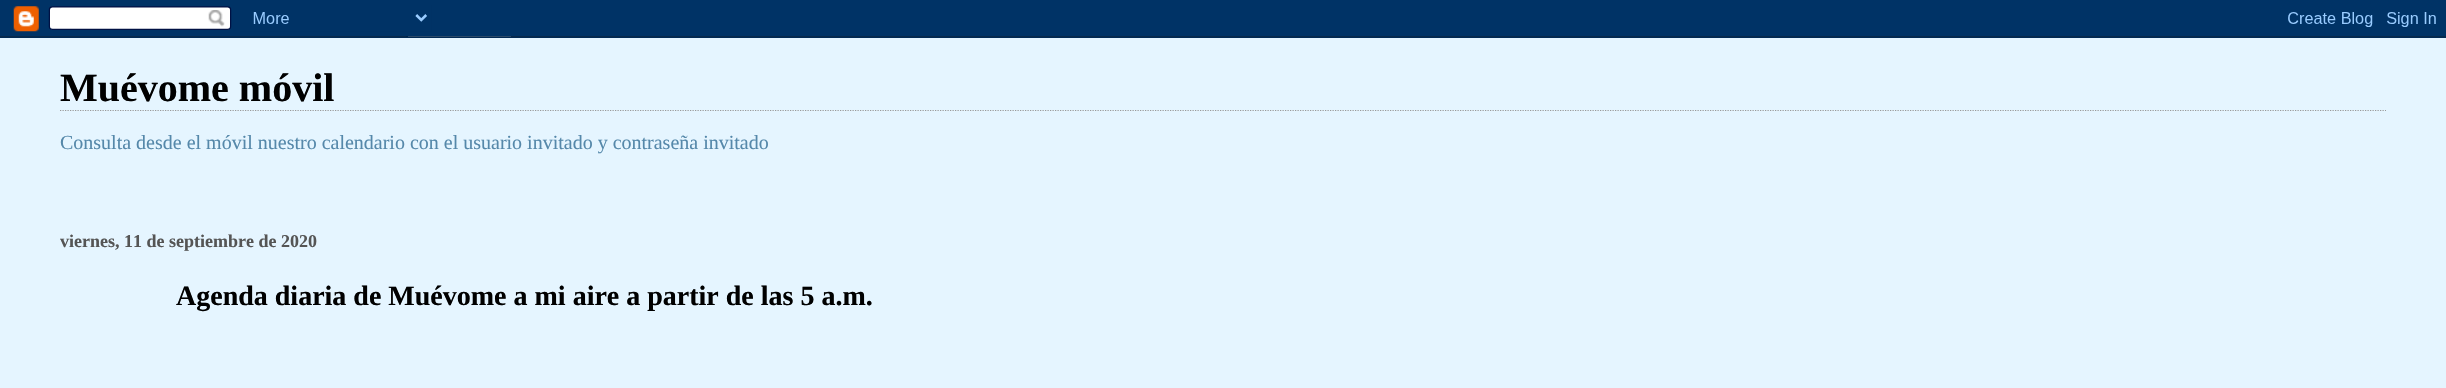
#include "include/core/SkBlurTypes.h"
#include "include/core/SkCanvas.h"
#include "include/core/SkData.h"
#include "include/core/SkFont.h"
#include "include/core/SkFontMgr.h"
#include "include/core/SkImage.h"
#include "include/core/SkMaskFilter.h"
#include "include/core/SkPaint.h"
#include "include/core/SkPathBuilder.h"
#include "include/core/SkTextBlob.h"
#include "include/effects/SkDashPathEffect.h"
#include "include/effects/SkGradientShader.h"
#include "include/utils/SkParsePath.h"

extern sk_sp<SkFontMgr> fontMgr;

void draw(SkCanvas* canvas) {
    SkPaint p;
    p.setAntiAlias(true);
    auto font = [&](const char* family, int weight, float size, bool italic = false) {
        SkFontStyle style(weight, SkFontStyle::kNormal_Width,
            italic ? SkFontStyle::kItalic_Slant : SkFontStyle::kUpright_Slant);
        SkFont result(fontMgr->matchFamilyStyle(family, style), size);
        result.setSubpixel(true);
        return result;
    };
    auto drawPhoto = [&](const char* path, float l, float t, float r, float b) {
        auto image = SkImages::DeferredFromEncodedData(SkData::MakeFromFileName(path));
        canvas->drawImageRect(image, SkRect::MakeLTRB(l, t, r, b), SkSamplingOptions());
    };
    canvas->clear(0xFFE5F5FF);
    drawPhoto("media/1.png", 0, 0, 2446, 38);
    p.setStyle(SkPaint::kStroke_Style);
    p.setStrokeWidth(1.2f);
    p.setColor(0xFF999999);
    p.setPathEffect(SkDashPathEffect::Make({{1.25f, 1.25f}}, 0));
    canvas->drawPath(SkPathBuilder().moveTo(60, 110.5f).lineTo(2386, 110.5f).detach(), p);
    p.setPathEffect(nullptr);
    auto font1 = font("Liberation Serif", 700, 40);
    p.setStyle(SkPaint::kFill_Style);
    p.setColor(0xFF000000);
    canvas->drawString("Muévome móvil", 60, 101, font1, p);
    auto font2 = font("Liberation Serif", 400, 20);
    p.setColor(0xFF5588AA);
    canvas->drawString("Consulta desde el móvil nuestro calendario con el usuario invitado y contraseña invitado", 60, 149, font2, p);
    auto font3 = font("Liberation Serif", 700, 18);
    p.setColor(0xFF555555);
    canvas->drawString("viernes, 11 de septiembre de 2020", 60, 247, font3, p);
    auto font4 = font("Liberation Serif", 700, 28);
    p.setColor(0xFF000000);
    canvas->drawString("Agenda diaria de Muévome a mi aire a partir de las 5 a.m.", 176, 305, font4, p);
}
